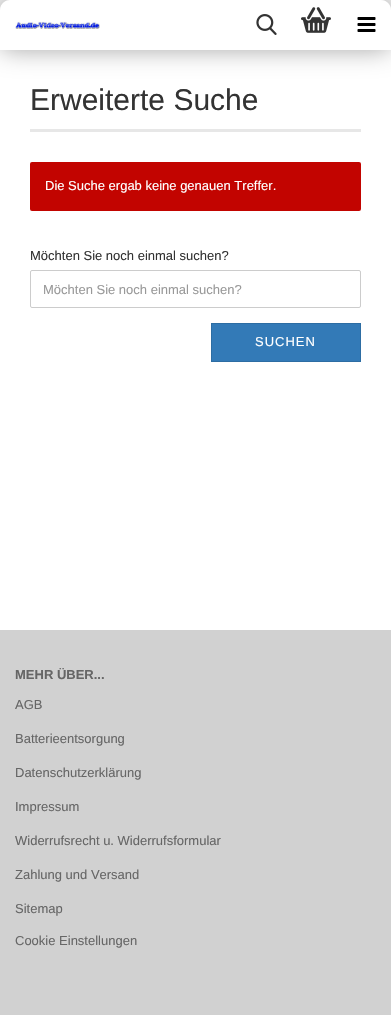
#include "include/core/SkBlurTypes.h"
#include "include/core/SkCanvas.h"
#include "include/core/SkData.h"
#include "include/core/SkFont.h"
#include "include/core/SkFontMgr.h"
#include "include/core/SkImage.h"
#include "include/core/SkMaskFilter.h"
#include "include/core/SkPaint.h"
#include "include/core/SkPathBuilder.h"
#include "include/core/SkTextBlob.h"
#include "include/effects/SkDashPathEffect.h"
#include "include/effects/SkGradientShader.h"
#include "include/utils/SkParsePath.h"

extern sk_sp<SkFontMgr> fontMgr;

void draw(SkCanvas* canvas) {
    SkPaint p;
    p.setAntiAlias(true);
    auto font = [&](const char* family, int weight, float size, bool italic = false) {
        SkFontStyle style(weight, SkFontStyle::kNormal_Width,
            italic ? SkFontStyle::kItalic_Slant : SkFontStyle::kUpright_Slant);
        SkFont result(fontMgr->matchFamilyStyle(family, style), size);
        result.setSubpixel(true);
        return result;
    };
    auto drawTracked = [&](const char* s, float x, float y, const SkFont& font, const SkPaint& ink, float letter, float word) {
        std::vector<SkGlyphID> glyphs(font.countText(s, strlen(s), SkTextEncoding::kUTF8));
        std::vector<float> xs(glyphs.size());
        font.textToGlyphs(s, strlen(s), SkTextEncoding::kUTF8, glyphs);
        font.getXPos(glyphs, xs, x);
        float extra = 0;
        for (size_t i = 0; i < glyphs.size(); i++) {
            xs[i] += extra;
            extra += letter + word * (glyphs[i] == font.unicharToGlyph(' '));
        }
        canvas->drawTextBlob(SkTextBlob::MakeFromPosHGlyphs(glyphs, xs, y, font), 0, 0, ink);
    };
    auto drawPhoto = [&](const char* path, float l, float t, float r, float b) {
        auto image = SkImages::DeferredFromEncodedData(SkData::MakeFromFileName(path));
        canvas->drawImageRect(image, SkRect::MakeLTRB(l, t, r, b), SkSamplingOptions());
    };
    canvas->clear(0xFFF3F3F3);
    p.setColor(0xFFFFFFFF);
    canvas->drawRoundRect(SkRect::MakeLTRB(0, 0, 391, 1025), 10, 10, p);
    p.setColor(0x59000000);
    p.setMaskFilter(SkMaskFilter::MakeBlur(kNormal_SkBlurStyle, 12.5f));
    canvas->drawRoundRect(SkRect::MakeLTRB(0, 0, 391, 50), 10, 10, p);
    p.setMaskFilter(nullptr);
    p.setColor(0xFFFFFFFF);
    canvas->drawPath(SkPathBuilder().moveTo(10, 0).lineTo(381, 0).cubicTo(386.5f, 0, 391, 4.5f, 391, 10).lineTo(391, 50).lineTo(0, 50).lineTo(0, 10).cubicTo(0, 4.5f, 4.5f, 0, 10, 0).close().detach(), p);
    drawPhoto("media/1.png", 15, 21, 100, 29);
    drawPhoto("media/2.png", 256, 14, 277, 35);
    drawPhoto("media/3.png", 301, 7, 331, 33);
    drawPhoto("media/4.png", 357, 17, 376, 32);
    p.setColor(0xFFE7E7E7);
    canvas->drawRect(SkRect::MakeLTRB(30, 129, 361, 132), p);
    auto font1 = font("Liberation Sans", 400, 30);
    p.setColor(0xFF333333);
    canvas->drawString("Erweiterte Suche", 30, 110, font1, p);
    p.setColor(0xFFC20400);
    canvas->drawRoundRect(SkRect::MakeLTRB(30, 162, 361, 211), 2, 2, p);
    auto font2 = font("Liberation Sans", 400, 13);
    p.setColor(0xFFFFFFFF);
    canvas->drawString("Die Suche ergab keine genauen Treffer.", 45, 190, font2, p);
    p.setColor(0xFF333333);
    canvas->drawString("Möchten Sie noch einmal suchen?", 30, 260, font2, p);
    p.setStyle(SkPaint::kStroke_Style);
    p.setStrokeWidth(1);
    p.setColor(0xFFCCCCCC);
    canvas->drawRoundRect(SkRect::MakeLTRB(30.5f, 270.5f, 360.5f, 307.5f), 1.5f, 1.5f, p);
    p.setStyle(SkPaint::kFill_Style);
    p.setColor(0xFF999999);
    canvas->drawString("Möchten Sie noch einmal suchen?", 43, 294, font2, p);
    p.setColor(0xFF337AB7);
    canvas->drawRect(SkRect::MakeLTRB(211.5f, 323.5f, 360.5f, 361.5f), p);
    p.setStyle(SkPaint::kStroke_Style);
    p.setColor(0xFF2D6DA3);
    canvas->drawRect(SkRect::MakeLTRB(211.5f, 323.5f, 360.5f, 361.5f), p);
    p.setStyle(SkPaint::kFill_Style);
    p.setColor(0xFFFFFFFF);
    drawTracked("SUCHEN", 255, 346, font2, p, 1, 0);
    p.setColor(0xFFD1D1D1);
    canvas->drawRect(SkRect::MakeLTRB(0, 630, 391, 1015), p);
    auto font3 = font("Liberation Sans", 700, 13);
    p.setColor(0xFF666666);
    canvas->drawString("MEHR ÜBER...", 15, 679, font3, p);
    {
        const struct { const char* s; float x, y; } items[] = {
            {"AGB", 15, 709},
            {"Batterieentsorgung", 15, 743},
            {"Datenschutzerklärung", 15, 777},
            {"Impressum", 15, 811},
            {"Widerrufsrecht u. Widerrufsformular", 15, 845},
            {"Zahlung und Versand", 15, 879},
            {"Sitemap", 15, 913},
            {"Cookie Einstellungen", 15, 945},
        };
        for (auto [s, x, y] : items) {
            canvas->drawString(s, x, y, font2, p);
        }
    }
}
